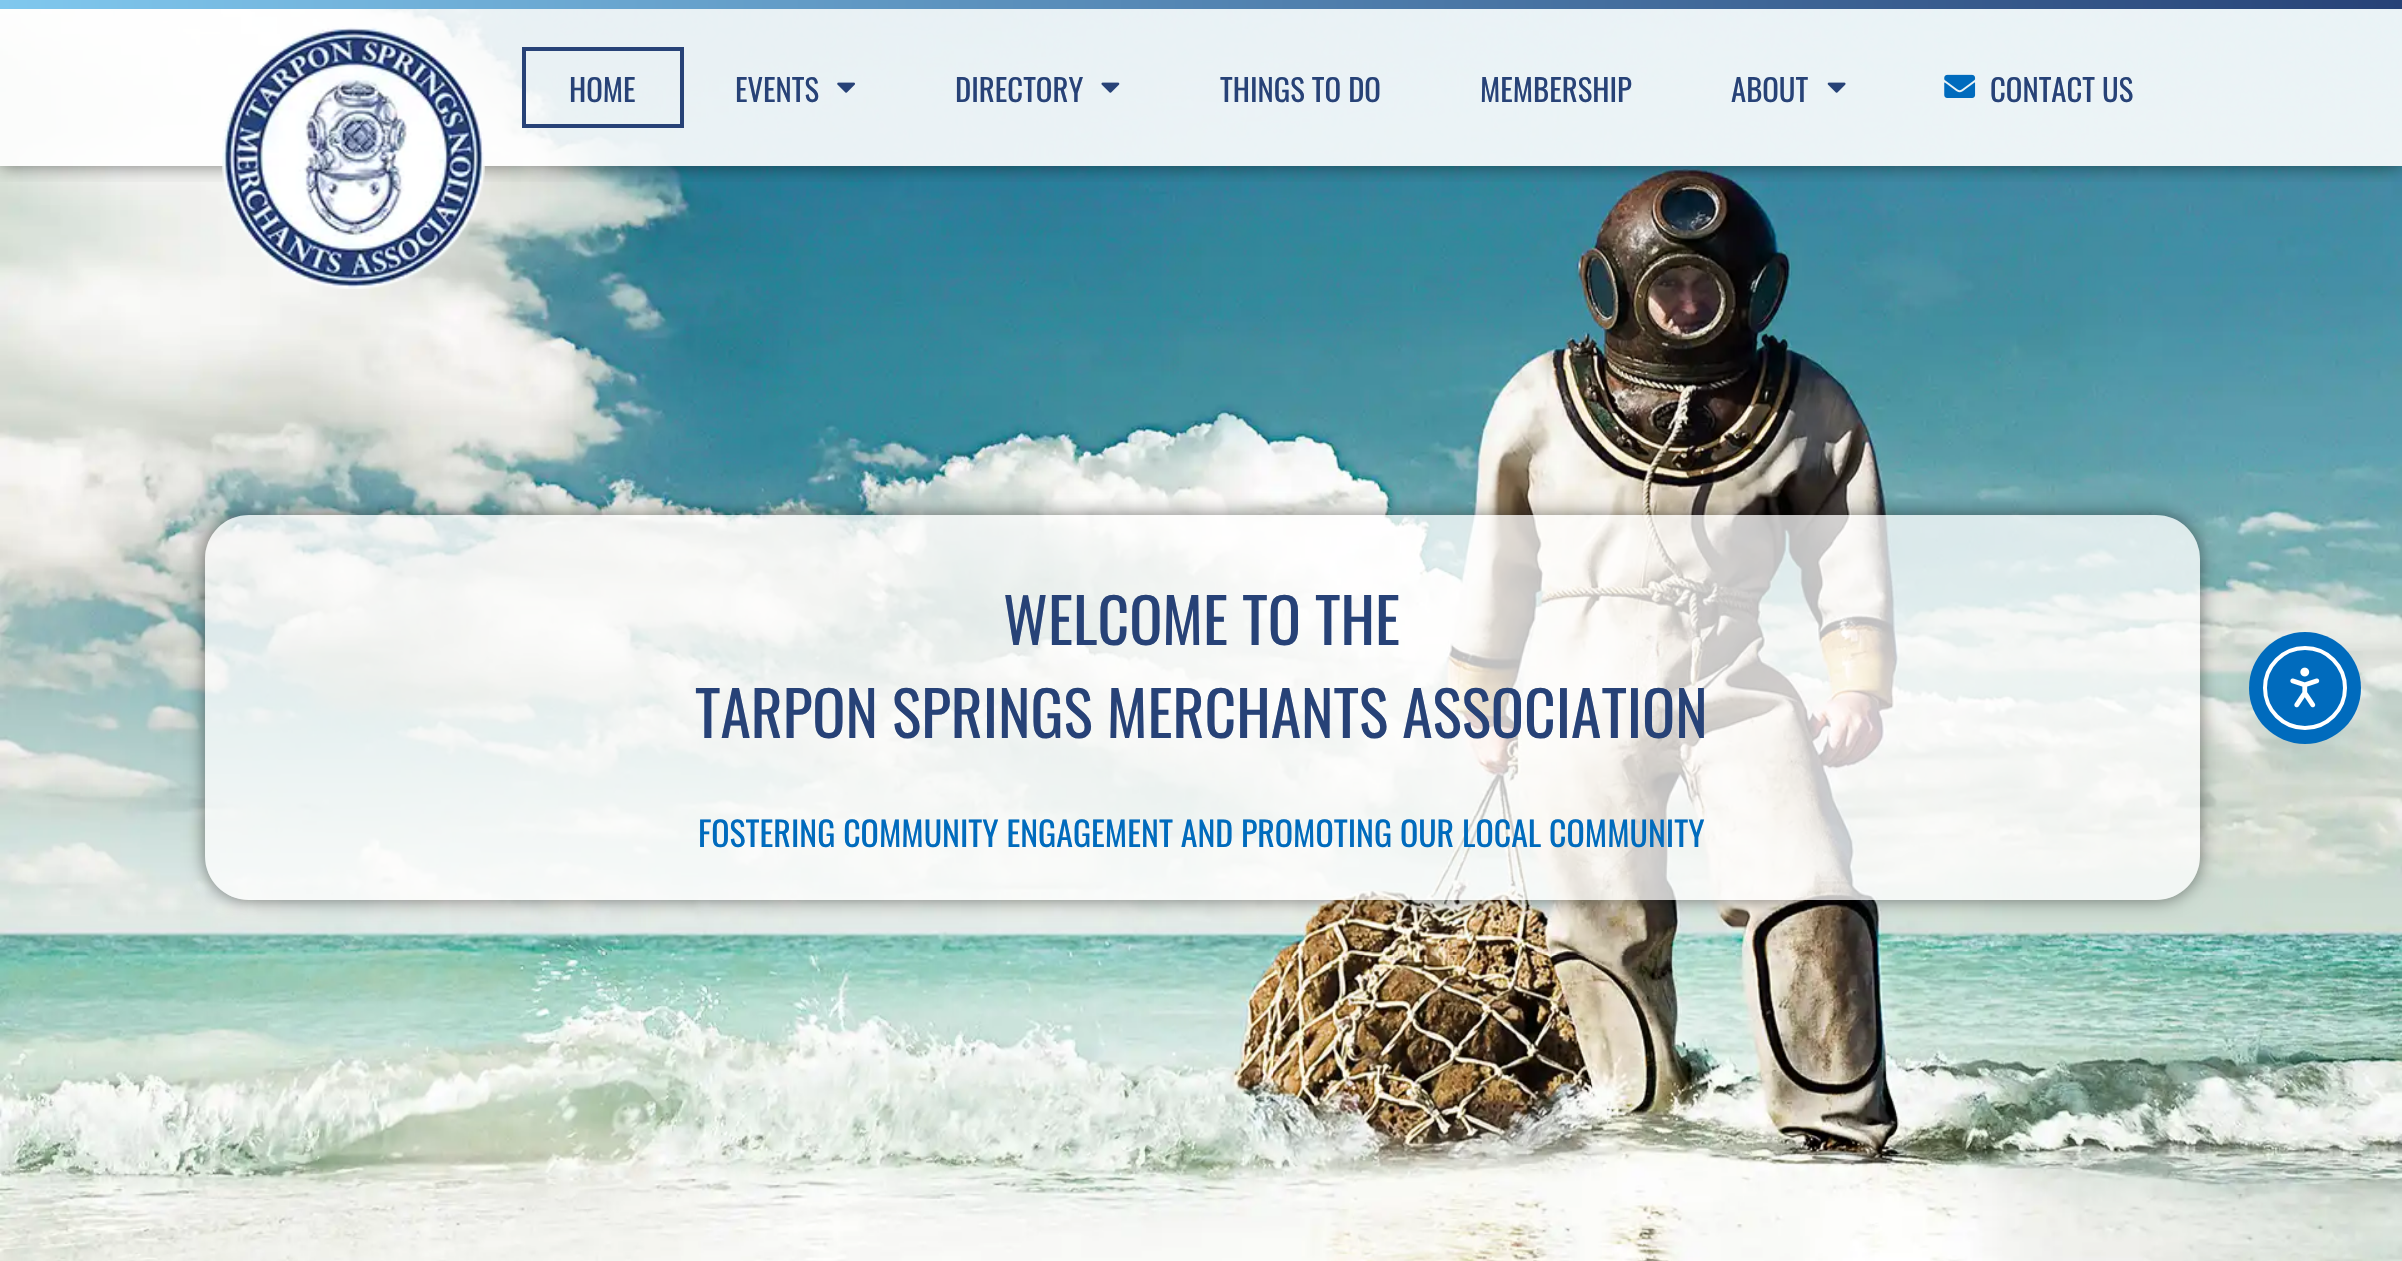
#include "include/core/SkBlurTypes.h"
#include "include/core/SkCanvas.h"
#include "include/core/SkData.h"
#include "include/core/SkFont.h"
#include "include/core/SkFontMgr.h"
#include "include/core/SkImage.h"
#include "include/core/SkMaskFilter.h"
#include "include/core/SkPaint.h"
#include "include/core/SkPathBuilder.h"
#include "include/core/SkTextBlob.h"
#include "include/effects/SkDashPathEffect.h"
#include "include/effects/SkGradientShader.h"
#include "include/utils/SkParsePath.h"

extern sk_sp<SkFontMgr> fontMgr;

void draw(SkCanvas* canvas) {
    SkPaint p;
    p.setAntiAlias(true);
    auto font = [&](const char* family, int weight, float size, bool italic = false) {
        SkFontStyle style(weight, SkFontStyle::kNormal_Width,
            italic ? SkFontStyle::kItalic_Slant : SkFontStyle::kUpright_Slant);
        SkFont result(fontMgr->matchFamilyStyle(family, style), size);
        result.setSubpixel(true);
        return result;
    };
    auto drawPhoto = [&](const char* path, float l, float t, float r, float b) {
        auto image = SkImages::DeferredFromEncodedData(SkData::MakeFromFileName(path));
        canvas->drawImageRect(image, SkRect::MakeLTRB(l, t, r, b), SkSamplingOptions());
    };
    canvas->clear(0xFFFFFFFF);
    drawPhoto("media/6.png", 0, 9, 2402, 1261);
    canvas->save();
    canvas->clipRect(SkRect::MakeLTRB(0, 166, 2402, 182));
    p.setColor(0x80000000);
    p.setMaskFilter(SkMaskFilter::MakeBlur(kNormal_SkBlurStyle, 9));
    canvas->drawRect(SkRect::MakeLTRB(0, 0, 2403, 166), p);
    p.setMaskFilter(nullptr);
    canvas->restore();
    {
        const SkColor colors[] = {0xFF80C8EE, 0xFF274277};
        const float stops[] = {0, 1};
        const SkPoint ends[] = {{0, 4.4f}, {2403, 4.4f}};
        p.setShader(SkGradientShader::MakeLinear(ends, colors, stops, 2, SkTileMode::kClamp));
        p.setAlpha(255);
    }
    canvas->drawRect(SkRect::MakeLTRB(0, 0, 2402, 9), p);
    p.setShader(nullptr);
    p.setColor(0xE6FFFFFF);
    canvas->drawRect(SkRect::MakeLTRB(0, 9, 2402, 166), p);
    drawPhoto("media/1.png", 222, 26, 485, 289);
    p.setStyle(SkPaint::kStroke_Style);
    p.setStrokeWidth(4);
    p.setColor(0xFF274277);
    canvas->drawRect(SkRect::MakeLTRB(524, 49, 682, 126), p);
    auto font1 = font("Oswald", 400, 30.75f);
    p.setStyle(SkPaint::kFill_Style);
    canvas->drawString("HOME", 569, 102, font1, p);
    canvas->drawString("EVENTS", 735, 102, font1, p);
    drawPhoto("media/2.png", 837, 82, 855, 93);
    canvas->drawString("DIRECTORY", 955, 102, font1, p);
    drawPhoto("media/3.png", 1101, 82, 1120, 93);
    {
        const struct { const char* s; float x, y; } items[] = {
            {"THINGS TO DO", 1220, 102},
            {"MEMBERSHIP", 1480, 102},
            {"ABOUT", 1731, 102},
        };
        for (auto [s, x, y] : items) {
            canvas->drawString(s, x, y, font1, p);
        }
    }
    drawPhoto("media/4.png", 1827, 82, 1846, 93);
    drawPhoto("media/5.png", 1944, 74, 1976, 98);
    canvas->drawString("CONTACT US", 1990, 102, font1, p);
    canvas->save();
    canvas->clipPath(SkPathBuilder(SkPathFillType::kEvenOdd).moveTo(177, 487).lineTo(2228, 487).lineTo(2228, 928).lineTo(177, 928).close().moveTo(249, 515).lineTo(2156, 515).cubicTo(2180.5f, 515, 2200, 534.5f, 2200, 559).lineTo(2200, 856).cubicTo(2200, 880.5f, 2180.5f, 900, 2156, 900).lineTo(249, 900).cubicTo(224.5f, 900, 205, 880.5f, 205, 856).lineTo(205, 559).cubicTo(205, 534.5f, 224.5f, 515, 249, 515).close().detach(), true);
    p.setColor(0x80000000);
    p.setMaskFilter(SkMaskFilter::MakeBlur(kNormal_SkBlurStyle, 9));
    canvas->drawRoundRect(SkRect::MakeLTRB(205, 515, 2200, 900), 44, 44, p);
    p.setMaskFilter(nullptr);
    canvas->restore();
    p.setColor(0xBFFFFFFF);
    canvas->drawRoundRect(SkRect::MakeLTRB(205, 515, 2200, 900), 44, 44, p);
    auto font2 = font("Oswald", 400, 61.6f);
    p.setColor(0xFF274277);
    canvas->drawString("WELCOME TO THE", 1003, 645, font2, p);
    canvas->drawString("TARPON SPRINGS MERCHANTS ASSOCIATION", 695, 738, font2, p);
    auto font3 = font("Oswald", 400, 33.9f);
    p.setColor(0xFF006BBD);
    canvas->drawString("FOSTERING COMMUNITY ENGAGEMENT AND PROMOTING OUR LOCAL COMMUNITY", 698, 847, font3, p);
    canvas->drawCircle(2305, 688, 56, p);
    p.setStyle(SkPaint::kStroke_Style);
    p.setColor(0xFFFFFFFF);
    canvas->drawCircle(2305, 688, 40, p);
    drawPhoto("media/7.png", 2290, 667, 2320, 708);
}
